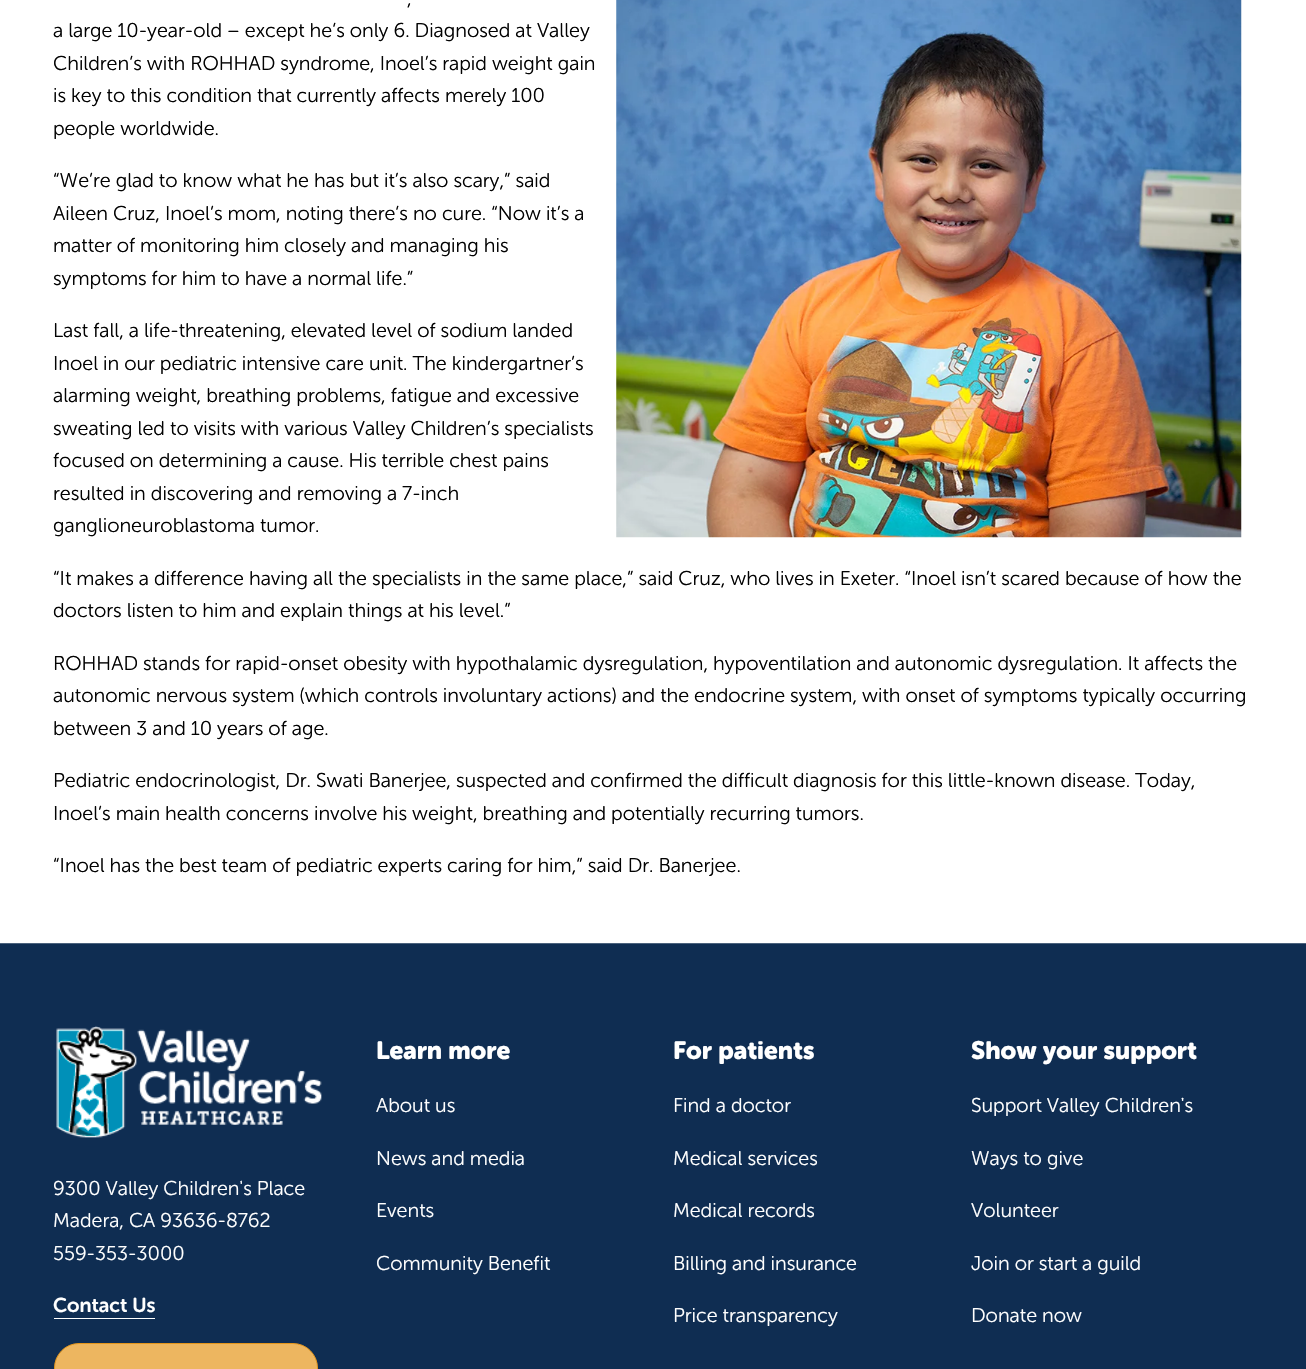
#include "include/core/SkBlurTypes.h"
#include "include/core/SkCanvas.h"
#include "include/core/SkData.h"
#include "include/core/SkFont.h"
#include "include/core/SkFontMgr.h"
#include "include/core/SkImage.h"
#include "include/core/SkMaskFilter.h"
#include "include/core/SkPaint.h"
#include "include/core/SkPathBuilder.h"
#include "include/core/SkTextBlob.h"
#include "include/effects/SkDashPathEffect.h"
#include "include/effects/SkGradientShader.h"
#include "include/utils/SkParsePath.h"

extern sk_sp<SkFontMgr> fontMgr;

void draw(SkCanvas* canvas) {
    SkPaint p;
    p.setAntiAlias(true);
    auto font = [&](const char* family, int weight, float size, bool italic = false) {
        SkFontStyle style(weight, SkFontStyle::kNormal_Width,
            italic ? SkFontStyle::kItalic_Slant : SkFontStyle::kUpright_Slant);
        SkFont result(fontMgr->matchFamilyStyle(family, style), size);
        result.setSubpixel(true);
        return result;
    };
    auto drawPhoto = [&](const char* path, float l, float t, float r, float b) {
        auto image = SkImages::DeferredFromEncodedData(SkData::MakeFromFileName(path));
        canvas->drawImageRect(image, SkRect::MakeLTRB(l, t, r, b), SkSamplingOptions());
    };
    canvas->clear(0xFFFFFFFF);
    auto font1 = font("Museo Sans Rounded", 300, 20);
    p.setColor(0xFF020202);
    canvas->drawString(",", 407, 5, font1, p);
    drawPhoto("media/1.png", 616, 0, 1242, 538);
    {
        const struct { const char* s; float x, y; } items[] = {
            {"a large 10-year-old – except he’s only 6. Diagnosed at Valley", 53, 37},
            {"Children’s with ROHHAD syndrome, Inoel’s rapid weight gain", 53, 70},
            {"is key to this condition that currently affects merely 100", 53, 102},
            {"people worldwide.", 53, 135},
            {"“We’re glad to know what he has but it’s also scary,” said", 53, 187},
            {"Aileen Cruz, Inoel’s mom, noting there’s no cure. “Now it’s a", 53, 220},
            {"matter of monitoring him closely and managing his", 53, 252},
            {"symptoms for him to have a normal life.”", 53, 285},
            {"Last fall, a life-threatening, elevated level of sodium landed", 53, 337},
            {"Inoel in our pediatric intensive care unit. The kindergartner’s", 53, 370},
            {"alarming weight, breathing problems, fatigue and excessive", 53, 402},
            {"sweating led to visits with various Valley Children’s specialists", 53, 435},
            {"focused on determining a cause. His terrible chest pains", 53, 467},
            {"resulted in discovering and removing a 7-inch", 53, 500},
            {"ganglioneuroblastoma tumor.", 53, 532},
            {"“It makes a difference having all the specialists in the same place,” said Cruz, who lives in Exeter. “Inoel isn’t scared because of how the", 53, 585},
            {"doctors listen to him and explain things at his level.”", 53, 617},
            {"ROHHAD stands for rapid-onset obesity with hypothalamic dysregulation, hypoventilation and autonomic dysregulation. It affects the", 53, 670},
            {"autonomic nervous system (which controls involuntary actions) and the endocrine system, with onset of symptoms typically occurring", 53, 702},
            {"between 3 and 10 years of age.", 53, 735},
            {"Pediatric endocrinologist, Dr. Swati Banerjee, suspected and confirmed the difficult diagnosis for this little-known disease. Today,", 53, 787},
            {"Inoel’s main health concerns involve his weight, breathing and potentially recurring tumors.", 53, 820},
            {"“Inoel has the best team of pediatric experts caring for him,” said Dr. Banerjee.", 53, 872},
        };
        for (auto [s, x, y] : items) {
            canvas->drawString(s, x, y, font1, p);
        }
    }
    p.setColor(0xFF0F2D52);
    canvas->drawRect(SkRect::MakeLTRB(0, 944, 1306, 1369), p);
    p.setColor(0xFF4B627D);
    canvas->drawRect(SkRect::MakeLTRB(0, 943, 1306, 944), p);
    drawPhoto("media/2.png", 56, 1026, 322, 1138);
    p.setColor(0xFFFFFFFF);
    {
        const struct { const char* s; float x, y; } items[] = {
            {"9300 Valley Children's Place", 53, 1195},
            {"Madera, CA 93636-8762", 53, 1227},
            {"559-353-3000", 53, 1260},
        };
        for (auto [s, x, y] : items) {
            canvas->drawString(s, x, y, font1, p);
        }
    }
    auto font2 = font("Museo Sans Rounded", 600, 20);
    canvas->drawString("Contact Us", 53, 1312, font2, p);
    canvas->drawRect(SkRect::MakeLTRB(54, 1318, 155, 1319), p);
    p.setColor(0xFFEDB660);
    canvas->drawRoundRect(SkRect::MakeLTRB(54.5f, 1343.5f, 317.5f, 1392.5f), 24.5f, 24.5f, p);
    p.setStyle(SkPaint::kStroke_Style);
    p.setStrokeWidth(1);
    p.setColor(0xFFE5961A);
    canvas->drawRoundRect(SkRect::MakeLTRB(54.5f, 1343.5f, 317.5f, 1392.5f), 24.5f, 24.5f, p);
    auto font3 = font("Museo Sans Rounded", 700, 25);
    p.setStyle(SkPaint::kFill_Style);
    p.setColor(0xFFFFFFFF);
    canvas->drawString("Learn more", 376, 1059, font3, p);
    {
        const struct { const char* s; float x, y; } items[] = {
            {"About us", 376, 1112},
            {"News and media", 376, 1165},
            {"Events", 376, 1217},
            {"Community Benefit", 376, 1270},
        };
        for (auto [s, x, y] : items) {
            canvas->drawString(s, x, y, font1, p);
        }
    }
    canvas->drawString("For patients", 673, 1059, font3, p);
    {
        const struct { const char* s; float x, y; } items[] = {
            {"Find a doctor", 673, 1112},
            {"Medical services", 673, 1165},
            {"Medical records", 673, 1217},
            {"Billing and insurance", 673, 1270},
            {"Price transparency", 673, 1322},
        };
        for (auto [s, x, y] : items) {
            canvas->drawString(s, x, y, font1, p);
        }
    }
    canvas->drawString("Show your support", 971, 1059, font3, p);
    {
        const struct { const char* s; float x, y; } items[] = {
            {"Support Valley Children's", 971, 1112},
            {"Ways to give", 971, 1165},
            {"Volunteer", 971, 1217},
            {"Join or start a guild", 971, 1270},
            {"Donate now", 971, 1322},
        };
        for (auto [s, x, y] : items) {
            canvas->drawString(s, x, y, font1, p);
        }
    }
}
